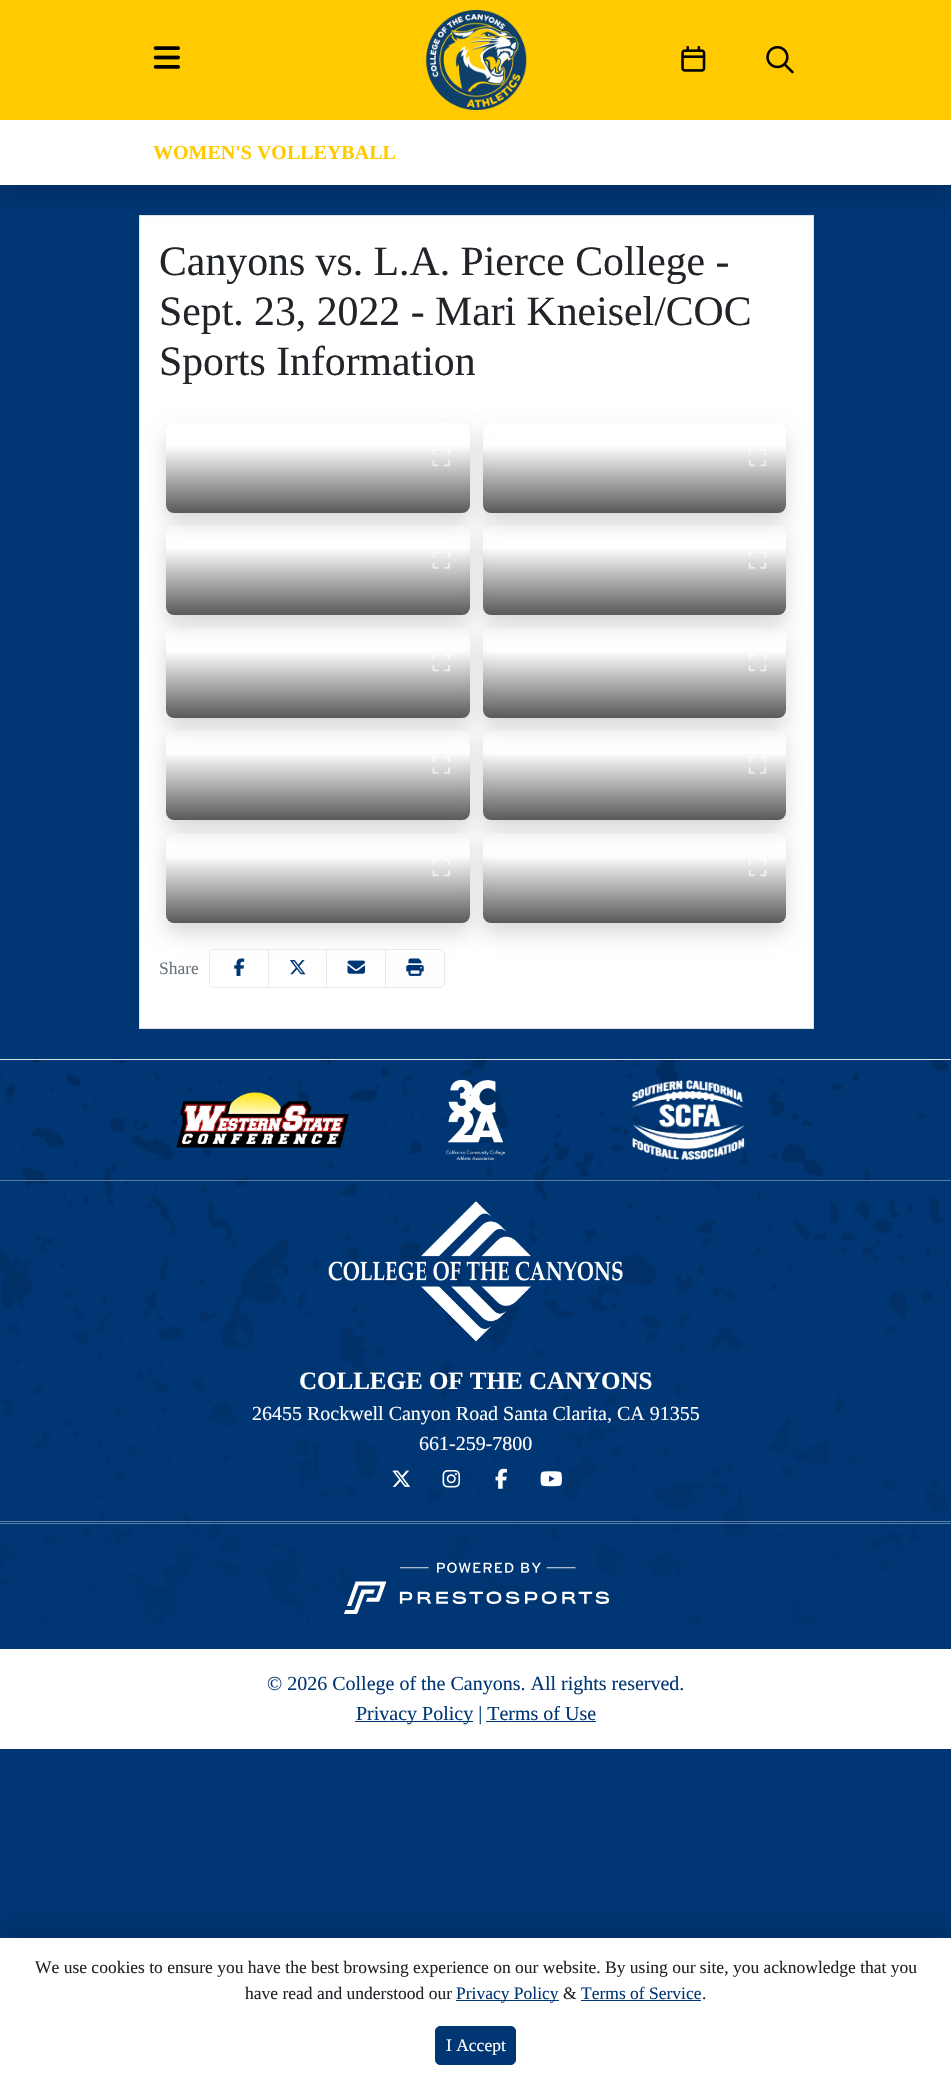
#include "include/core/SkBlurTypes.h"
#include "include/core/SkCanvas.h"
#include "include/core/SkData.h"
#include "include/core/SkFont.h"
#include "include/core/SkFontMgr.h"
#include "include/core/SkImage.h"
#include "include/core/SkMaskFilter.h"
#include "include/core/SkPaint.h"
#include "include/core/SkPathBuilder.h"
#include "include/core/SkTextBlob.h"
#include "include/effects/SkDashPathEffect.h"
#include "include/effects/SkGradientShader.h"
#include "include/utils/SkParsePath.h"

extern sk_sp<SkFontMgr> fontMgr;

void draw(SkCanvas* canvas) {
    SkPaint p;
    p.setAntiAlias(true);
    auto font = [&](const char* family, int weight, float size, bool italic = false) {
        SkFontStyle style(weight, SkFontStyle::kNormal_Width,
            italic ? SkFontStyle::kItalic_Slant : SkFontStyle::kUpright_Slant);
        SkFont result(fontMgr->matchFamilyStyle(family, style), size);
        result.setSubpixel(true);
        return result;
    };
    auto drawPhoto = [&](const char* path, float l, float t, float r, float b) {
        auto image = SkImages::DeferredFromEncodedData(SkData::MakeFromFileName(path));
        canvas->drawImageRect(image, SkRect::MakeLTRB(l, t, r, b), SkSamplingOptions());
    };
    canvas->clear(0xFF003674);
    drawPhoto("media/1.png", 0, 1060, 951, 1624);
    p.setColor(0xFFFFFFFF);
    canvas->drawRect(SkRect::MakeLTRB(139.5f, 215.5f, 813.5f, 1028.5f), p);
    p.setStyle(SkPaint::kStroke_Style);
    p.setStrokeWidth(1);
    p.setColor(0xFFDEE2E6);
    canvas->drawRect(SkRect::MakeLTRB(139.5f, 215.5f, 813.5f, 1028.5f), p);
    p.setStyle(SkPaint::kFill_Style);
    p.setColor(0x26000000);
    p.setMaskFilter(SkMaskFilter::MakeBlur(kNormal_SkBlurStyle, 10));
    canvas->drawRect(SkRect::MakeLTRB(0, 10, 951, 195), p);
    p.setMaskFilter(nullptr);
    p.setColor(0xFFFFCB00);
    canvas->drawRect(SkRect::MakeLTRB(0, 0, 951, 120), p);
    drawPhoto("media/2.png", 153, 46, 180, 69);
    drawPhoto("media/3.png", 426, 10, 527, 110);
    drawPhoto("media/4.png", 681, 46, 706, 72);
    drawPhoto("media/5.png", 766, 45, 794, 74);
    p.setColor(0xFFFFFFFF);
    canvas->drawRect(SkRect::MakeLTRB(0, 120, 951, 185), p);
    auto font1 = font("Liberation Serif", 700, 20);
    p.setColor(0xFFFFCB00);
    canvas->drawString("WOMEN'S VOLLEYBALL", 153, 159, font1, p);
    auto font2 = font("Liberation Serif", 400, 41.75f);
    p.setColor(0xFF212529);
    {
        const struct { const char* s; float x, y; } items[] = {
            {"Canyons vs. L.A. Pierce College -", 159, 275},
            {"Sept. 23, 2022 - Mari Kneisel/COC", 159, 325},
            {"Sports Information", 159, 375},
        };
        for (auto [s, x, y] : items) {
            canvas->drawString(s, x, y, font2, p);
        }
    }
    canvas->save();
    canvas->clipPath(SkPathBuilder(SkPathFillType::kEvenOdd).moveTo(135, 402).lineTo(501, 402).lineTo(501, 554).lineTo(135, 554).close().moveTo(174, 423).lineTo(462, 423).cubicTo(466.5f, 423, 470, 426.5f, 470, 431).lineTo(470, 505).cubicTo(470, 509.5f, 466.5f, 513, 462, 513).lineTo(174, 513).cubicTo(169.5f, 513, 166, 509.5f, 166, 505).lineTo(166, 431).cubicTo(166, 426.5f, 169.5f, 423, 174, 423).close().detach(), true);
    p.setColor(0x26000000);
    p.setMaskFilter(SkMaskFilter::MakeBlur(kNormal_SkBlurStyle, 10));
    canvas->drawRoundRect(SkRect::MakeLTRB(166, 433, 470, 523), 8, 8, p);
    p.setMaskFilter(nullptr);
    canvas->restore();
    {
        const SkColor colors[] = {0xA6000000, 0x00000000};
        const float stops[] = {0, 0.75f};
        const SkPoint ends[] = {{318, 513}, {318, 423}};
        p.setShader(SkGradientShader::MakeLinear(ends, colors, stops, 2, SkTileMode::kClamp));
        p.setAlpha(255);
    }
    canvas->drawRoundRect(SkRect::MakeLTRB(166, 423, 470, 513), 8, 8, p);
    drawPhoto("media/6.png", 432, 449, 450, 467);
    canvas->save();
    canvas->clipPath(SkPathBuilder(SkPathFillType::kEvenOdd).moveTo(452, 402).lineTo(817, 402).lineTo(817, 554).lineTo(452, 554).close().moveTo(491, 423).lineTo(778, 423).cubicTo(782.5f, 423, 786, 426.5f, 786, 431).lineTo(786, 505).cubicTo(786, 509.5f, 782.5f, 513, 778, 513).lineTo(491, 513).cubicTo(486.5f, 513, 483, 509.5f, 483, 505).lineTo(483, 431).cubicTo(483, 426.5f, 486.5f, 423, 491, 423).close().detach(), true);
    p.setShader(nullptr);
    p.setColor(0x26000000);
    p.setMaskFilter(SkMaskFilter::MakeBlur(kNormal_SkBlurStyle, 10));
    canvas->drawRoundRect(SkRect::MakeLTRB(483, 433, 786, 523), 8, 8, p);
    p.setMaskFilter(nullptr);
    canvas->restore();
    {
        const SkColor colors[] = {0xA6000000, 0x00000000};
        const float stops[] = {0, 0.75f};
        const SkPoint ends[] = {{634, 513}, {634, 423}};
        p.setShader(SkGradientShader::MakeLinear(ends, colors, stops, 2, SkTileMode::kClamp));
        p.setAlpha(255);
    }
    canvas->drawRoundRect(SkRect::MakeLTRB(483, 423, 786, 513), 8, 8, p);
    drawPhoto("media/7.png", 748, 449, 767, 467);
    canvas->save();
    canvas->clipPath(SkPathBuilder(SkPathFillType::kEvenOdd).moveTo(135, 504).lineTo(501, 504).lineTo(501, 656).lineTo(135, 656).close().moveTo(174, 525).lineTo(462, 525).cubicTo(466.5f, 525, 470, 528.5f, 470, 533).lineTo(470, 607).cubicTo(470, 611.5f, 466.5f, 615, 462, 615).lineTo(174, 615).cubicTo(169.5f, 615, 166, 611.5f, 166, 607).lineTo(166, 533).cubicTo(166, 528.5f, 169.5f, 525, 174, 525).close().detach(), true);
    p.setShader(nullptr);
    p.setColor(0x26000000);
    p.setMaskFilter(SkMaskFilter::MakeBlur(kNormal_SkBlurStyle, 10));
    canvas->drawRoundRect(SkRect::MakeLTRB(166, 535, 470, 625), 8, 8, p);
    p.setMaskFilter(nullptr);
    canvas->restore();
    {
        const SkColor colors[] = {0xA6000000, 0x00000000};
        const float stops[] = {0, 0.75f};
        const SkPoint ends[] = {{318, 615}, {318, 525}};
        p.setShader(SkGradientShader::MakeLinear(ends, colors, stops, 2, SkTileMode::kClamp));
        p.setAlpha(255);
    }
    canvas->drawRoundRect(SkRect::MakeLTRB(166, 525, 470, 615), 8, 8, p);
    drawPhoto("media/8.png", 432, 551, 450, 569);
    canvas->save();
    canvas->clipPath(SkPathBuilder(SkPathFillType::kEvenOdd).moveTo(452, 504).lineTo(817, 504).lineTo(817, 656).lineTo(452, 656).close().moveTo(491, 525).lineTo(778, 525).cubicTo(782.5f, 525, 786, 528.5f, 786, 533).lineTo(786, 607).cubicTo(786, 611.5f, 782.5f, 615, 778, 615).lineTo(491, 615).cubicTo(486.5f, 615, 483, 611.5f, 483, 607).lineTo(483, 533).cubicTo(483, 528.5f, 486.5f, 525, 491, 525).close().detach(), true);
    p.setShader(nullptr);
    p.setColor(0x26000000);
    p.setMaskFilter(SkMaskFilter::MakeBlur(kNormal_SkBlurStyle, 10));
    canvas->drawRoundRect(SkRect::MakeLTRB(483, 535, 786, 625), 8, 8, p);
    p.setMaskFilter(nullptr);
    canvas->restore();
    {
        const SkColor colors[] = {0xA6000000, 0x00000000};
        const float stops[] = {0, 0.75f};
        const SkPoint ends[] = {{634, 615}, {634, 525}};
        p.setShader(SkGradientShader::MakeLinear(ends, colors, stops, 2, SkTileMode::kClamp));
        p.setAlpha(255);
    }
    canvas->drawRoundRect(SkRect::MakeLTRB(483, 525, 786, 615), 8, 8, p);
    drawPhoto("media/9.png", 748, 551, 767, 569);
    canvas->save();
    canvas->clipPath(SkPathBuilder(SkPathFillType::kEvenOdd).moveTo(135, 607).lineTo(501, 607).lineTo(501, 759).lineTo(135, 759).close().moveTo(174, 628).lineTo(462, 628).cubicTo(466.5f, 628, 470, 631.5f, 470, 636).lineTo(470, 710).cubicTo(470, 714.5f, 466.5f, 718, 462, 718).lineTo(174, 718).cubicTo(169.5f, 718, 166, 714.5f, 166, 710).lineTo(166, 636).cubicTo(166, 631.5f, 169.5f, 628, 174, 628).close().detach(), true);
    p.setShader(nullptr);
    p.setColor(0x26000000);
    p.setMaskFilter(SkMaskFilter::MakeBlur(kNormal_SkBlurStyle, 10));
    canvas->drawRoundRect(SkRect::MakeLTRB(166, 638, 470, 728), 8, 8, p);
    p.setMaskFilter(nullptr);
    canvas->restore();
    {
        const SkColor colors[] = {0xA6000000, 0x00000000};
        const float stops[] = {0, 0.75f};
        const SkPoint ends[] = {{318, 718}, {318, 628}};
        p.setShader(SkGradientShader::MakeLinear(ends, colors, stops, 2, SkTileMode::kClamp));
        p.setAlpha(255);
    }
    canvas->drawRoundRect(SkRect::MakeLTRB(166, 628, 470, 718), 8, 8, p);
    drawPhoto("media/10.png", 432, 654, 450, 672);
    canvas->save();
    canvas->clipPath(SkPathBuilder(SkPathFillType::kEvenOdd).moveTo(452, 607).lineTo(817, 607).lineTo(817, 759).lineTo(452, 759).close().moveTo(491, 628).lineTo(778, 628).cubicTo(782.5f, 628, 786, 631.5f, 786, 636).lineTo(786, 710).cubicTo(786, 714.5f, 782.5f, 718, 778, 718).lineTo(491, 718).cubicTo(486.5f, 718, 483, 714.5f, 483, 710).lineTo(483, 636).cubicTo(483, 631.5f, 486.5f, 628, 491, 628).close().detach(), true);
    p.setShader(nullptr);
    p.setColor(0x26000000);
    p.setMaskFilter(SkMaskFilter::MakeBlur(kNormal_SkBlurStyle, 10));
    canvas->drawRoundRect(SkRect::MakeLTRB(483, 638, 786, 728), 8, 8, p);
    p.setMaskFilter(nullptr);
    canvas->restore();
    {
        const SkColor colors[] = {0xA6000000, 0x00000000};
        const float stops[] = {0, 0.75f};
        const SkPoint ends[] = {{634, 718}, {634, 628}};
        p.setShader(SkGradientShader::MakeLinear(ends, colors, stops, 2, SkTileMode::kClamp));
        p.setAlpha(255);
    }
    canvas->drawRoundRect(SkRect::MakeLTRB(483, 628, 786, 718), 8, 8, p);
    drawPhoto("media/11.png", 748, 654, 767, 672);
    canvas->save();
    canvas->clipPath(SkPathBuilder(SkPathFillType::kEvenOdd).moveTo(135, 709).lineTo(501, 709).lineTo(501, 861).lineTo(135, 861).close().moveTo(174, 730).lineTo(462, 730).cubicTo(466.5f, 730, 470, 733.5f, 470, 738).lineTo(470, 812).cubicTo(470, 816.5f, 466.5f, 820, 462, 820).lineTo(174, 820).cubicTo(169.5f, 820, 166, 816.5f, 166, 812).lineTo(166, 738).cubicTo(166, 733.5f, 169.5f, 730, 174, 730).close().detach(), true);
    p.setShader(nullptr);
    p.setColor(0x26000000);
    p.setMaskFilter(SkMaskFilter::MakeBlur(kNormal_SkBlurStyle, 10));
    canvas->drawRoundRect(SkRect::MakeLTRB(166, 740, 470, 830), 8, 8, p);
    p.setMaskFilter(nullptr);
    canvas->restore();
    {
        const SkColor colors[] = {0xA6000000, 0x00000000};
        const float stops[] = {0, 0.75f};
        const SkPoint ends[] = {{318, 820}, {318, 730}};
        p.setShader(SkGradientShader::MakeLinear(ends, colors, stops, 2, SkTileMode::kClamp));
        p.setAlpha(255);
    }
    canvas->drawRoundRect(SkRect::MakeLTRB(166, 730, 470, 820), 8, 8, p);
    drawPhoto("media/8.png", 432, 756, 450, 774);
    canvas->save();
    canvas->clipPath(SkPathBuilder(SkPathFillType::kEvenOdd).moveTo(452, 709).lineTo(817, 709).lineTo(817, 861).lineTo(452, 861).close().moveTo(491, 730).lineTo(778, 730).cubicTo(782.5f, 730, 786, 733.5f, 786, 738).lineTo(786, 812).cubicTo(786, 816.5f, 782.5f, 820, 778, 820).lineTo(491, 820).cubicTo(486.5f, 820, 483, 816.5f, 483, 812).lineTo(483, 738).cubicTo(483, 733.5f, 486.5f, 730, 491, 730).close().detach(), true);
    p.setShader(nullptr);
    p.setColor(0x26000000);
    p.setMaskFilter(SkMaskFilter::MakeBlur(kNormal_SkBlurStyle, 10));
    canvas->drawRoundRect(SkRect::MakeLTRB(483, 740, 786, 830), 8, 8, p);
    p.setMaskFilter(nullptr);
    canvas->restore();
    {
        const SkColor colors[] = {0xA6000000, 0x00000000};
        const float stops[] = {0, 0.75f};
        const SkPoint ends[] = {{634, 820}, {634, 730}};
        p.setShader(SkGradientShader::MakeLinear(ends, colors, stops, 2, SkTileMode::kClamp));
        p.setAlpha(255);
    }
    canvas->drawRoundRect(SkRect::MakeLTRB(483, 730, 786, 820), 8, 8, p);
    drawPhoto("media/9.png", 748, 756, 767, 774);
    canvas->save();
    canvas->clipPath(SkPathBuilder(SkPathFillType::kEvenOdd).moveTo(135, 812).lineTo(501, 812).lineTo(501, 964).lineTo(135, 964).close().moveTo(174, 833).lineTo(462, 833).cubicTo(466.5f, 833, 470, 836.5f, 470, 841).lineTo(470, 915).cubicTo(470, 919.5f, 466.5f, 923, 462, 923).lineTo(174, 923).cubicTo(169.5f, 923, 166, 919.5f, 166, 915).lineTo(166, 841).cubicTo(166, 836.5f, 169.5f, 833, 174, 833).close().detach(), true);
    p.setShader(nullptr);
    p.setColor(0x26000000);
    p.setMaskFilter(SkMaskFilter::MakeBlur(kNormal_SkBlurStyle, 10));
    canvas->drawRoundRect(SkRect::MakeLTRB(166, 843, 470, 933), 8, 8, p);
    p.setMaskFilter(nullptr);
    canvas->restore();
    {
        const SkColor colors[] = {0xA6000000, 0x00000000};
        const float stops[] = {0, 0.75f};
        const SkPoint ends[] = {{318, 923}, {318, 833}};
        p.setShader(SkGradientShader::MakeLinear(ends, colors, stops, 2, SkTileMode::kClamp));
        p.setAlpha(255);
    }
    canvas->drawRoundRect(SkRect::MakeLTRB(166, 833, 470, 923), 8, 8, p);
    drawPhoto("media/10.png", 432, 859, 450, 877);
    canvas->save();
    canvas->clipPath(SkPathBuilder(SkPathFillType::kEvenOdd).moveTo(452, 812).lineTo(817, 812).lineTo(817, 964).lineTo(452, 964).close().moveTo(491, 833).lineTo(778, 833).cubicTo(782.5f, 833, 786, 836.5f, 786, 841).lineTo(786, 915).cubicTo(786, 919.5f, 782.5f, 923, 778, 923).lineTo(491, 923).cubicTo(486.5f, 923, 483, 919.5f, 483, 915).lineTo(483, 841).cubicTo(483, 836.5f, 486.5f, 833, 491, 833).close().detach(), true);
    p.setShader(nullptr);
    p.setColor(0x26000000);
    p.setMaskFilter(SkMaskFilter::MakeBlur(kNormal_SkBlurStyle, 10));
    canvas->drawRoundRect(SkRect::MakeLTRB(483, 843, 786, 933), 8, 8, p);
    p.setMaskFilter(nullptr);
    canvas->restore();
    {
        const SkColor colors[] = {0xA6000000, 0x00000000};
        const float stops[] = {0, 0.75f};
        const SkPoint ends[] = {{634, 923}, {634, 833}};
        p.setShader(SkGradientShader::MakeLinear(ends, colors, stops, 2, SkTileMode::kClamp));
        p.setAlpha(255);
    }
    canvas->drawRoundRect(SkRect::MakeLTRB(483, 833, 786, 923), 8, 8, p);
    drawPhoto("media/11.png", 748, 859, 767, 877);
    auto font3 = font("Liberation Serif", 400, 17.5f);
    p.setShader(nullptr);
    p.setColor(0xFF6C757D);
    canvas->drawString("Share", 159, 974, font3, p);
    p.setStyle(SkPaint::kStroke_Style);
    p.setColor(0xFFEAEAEA);
    canvas->drawPath(SkPathBuilder().moveTo(214, 949.5f).lineTo(268.5f, 949.5f).lineTo(268.5f, 987.5f).lineTo(214, 987.5f).cubicTo(211.5f, 987.5f, 209.5f, 985.5f, 209.5f, 983).lineTo(209.5f, 954).cubicTo(209.5f, 951.5f, 211.5f, 949.5f, 214, 949.5f).close().detach(), p);
    drawPhoto("media/12.png", 234, 958, 245, 976);
    canvas->drawRect(SkRect::MakeLTRB(268.5f, 949.5f, 327.5f, 987.5f), p);
    drawPhoto("media/13.png", 290, 960, 306, 975);
    p.setStyle(SkPaint::kFill_Style);
    p.setColor(0xFFFEFEFE);
    canvas->drawRect(SkRect::MakeLTRB(327, 950, 328, 987), p);
    p.setStyle(SkPaint::kStroke_Style);
    p.setColor(0xFFEAEAEA);
    canvas->drawRect(SkRect::MakeLTRB(326.5f, 949.5f, 385.5f, 987.5f), p);
    drawPhoto("media/14.png", 347, 960, 365, 974);
    p.setStyle(SkPaint::kFill_Style);
    p.setColor(0xFFFEFEFE);
    canvas->drawPath(SkPathBuilder().moveTo(385.5f, 949.5f).lineTo(440, 949.5f).cubicTo(442.5f, 949.5f, 444.5f, 951.5f, 444.5f, 954).lineTo(444.5f, 983).cubicTo(444.5f, 985.5f, 442.5f, 987.5f, 440, 987.5f).lineTo(385.5f, 987.5f).close().detach(), p);
    p.setStyle(SkPaint::kStroke_Style);
    p.setColor(0xFFEAEAEA);
    canvas->drawPath(SkPathBuilder().moveTo(385.5f, 949.5f).lineTo(440, 949.5f).cubicTo(442.5f, 949.5f, 444.5f, 951.5f, 444.5f, 954).lineTo(444.5f, 983).cubicTo(444.5f, 985.5f, 442.5f, 987.5f, 440, 987.5f).lineTo(385.5f, 987.5f).close().detach(), p);
    drawPhoto("media/15.png", 406, 958, 424, 976);
    p.setStyle(SkPaint::kFill_Style);
    p.setColor(0xFFDEE2E6);
    canvas->drawRect(SkRect::MakeLTRB(0, 1059, 951, 1060), p);
    drawPhoto("media/16.png", 176, 1092, 349, 1148);
    drawPhoto("media/17.png", 446, 1080, 505, 1160);
    drawPhoto("media/18.png", 632, 1080, 745, 1160);
    p.setColor(0x59FFFFFF);
    canvas->drawRect(SkRect::MakeLTRB(0, 1180, 951, 1181), p);
    drawPhoto("media/19.png", 328, 1201, 623, 1342);
    auto font4 = font("Liberation Serif", 700, 25);
    p.setColor(0xFFFFFFFF);
    canvas->drawString("COLLEGE OF THE CANYONS", 299, 1389, font4, p);
    auto font5 = font("Liberation Serif", 400, 20);
    canvas->drawString("26455 Rockwell Canyon Road Santa Clarita, CA 91355", 252, 1420, font5, p);
    canvas->drawString("661-259-7800", 419, 1450, font5, p);
    drawPhoto("media/20.png", 392, 1470, 411, 1487);
    drawPhoto("media/21.png", 442, 1470, 460, 1488);
    drawPhoto("media/22.png", 495, 1468, 507, 1489);
    drawPhoto("media/23.png", 540, 1471, 562, 1487);
    p.setColor(0x59FFFFFF);
    canvas->drawRect(SkRect::MakeLTRB(0, 1521, 951, 1522), p);
    canvas->drawRect(SkRect::MakeLTRB(0, 1523, 951, 1524), p);
    drawPhoto("media/24.png", 344, 1562, 610, 1614);
    p.setColor(0xFFFFFFFF);
    canvas->drawRect(SkRect::MakeLTRB(0, 1649, 951, 1749), p);
    p.setColor(0xFF003674);
    canvas->drawString("© 2026 College of the Canyons. All rights reserved.", 267, 1690, font5, p);
    canvas->drawRect(SkRect::MakeLTRB(355, 1721, 473, 1722), p);
    canvas->drawString("Privacy Policy | Terms of Use", 356, 1720, font5, p);
    canvas->drawRect(SkRect::MakeLTRB(486, 1721, 596, 1722), p);
    p.setColor(0x40000000);
    p.setMaskFilter(SkMaskFilter::MakeBlur(kNormal_SkBlurStyle, 15));
    canvas->drawRect(SkRect::MakeLTRB(0, 1938, 951, 2081), p);
    p.setMaskFilter(nullptr);
    p.setColor(0xFFFFFFFF);
    canvas->drawRect(SkRect::MakeLTRB(0, 1938, 951, 2081), p);
    p.setColor(0xFF212529);
    canvas->drawString("We use cookies to ensure you have the best browsing experience on our website. By using our site, you acknowledge that you", 35, 1973, font3, p);
    canvas->drawString("have read and understood our", 245, 1999, font3, p);
    p.setColor(0xFF003674);
    canvas->drawRect(SkRect::MakeLTRB(456, 2000, 559, 2001), p);
    canvas->drawString("Privacy Policy", 456, 1999, font3, p);
    p.setColor(0xFF212529);
    canvas->drawString("&", 563, 1999, font3, p);
    p.setColor(0xFF003674);
    canvas->drawString("Terms of Service", 581, 1999, font3, p);
    canvas->drawRect(SkRect::MakeLTRB(581, 2000, 701, 2001), p);
    p.setColor(0xFF212529);
    canvas->drawString(".", 702, 1999, font3, p);
    p.setColor(0xFF003674);
    canvas->drawRoundRect(SkRect::MakeLTRB(435.5f, 2026.5f, 515.5f, 2064.5f), 4.5f, 4.5f, p);
    p.setStyle(SkPaint::kStroke_Style);
    canvas->drawRoundRect(SkRect::MakeLTRB(435.5f, 2026.5f, 515.5f, 2064.5f), 4.5f, 4.5f, p);
    p.setStyle(SkPaint::kFill_Style);
    p.setColor(0xFFFFFFFF);
    canvas->drawString("I Accept", 446, 2051, font3, p);
}
